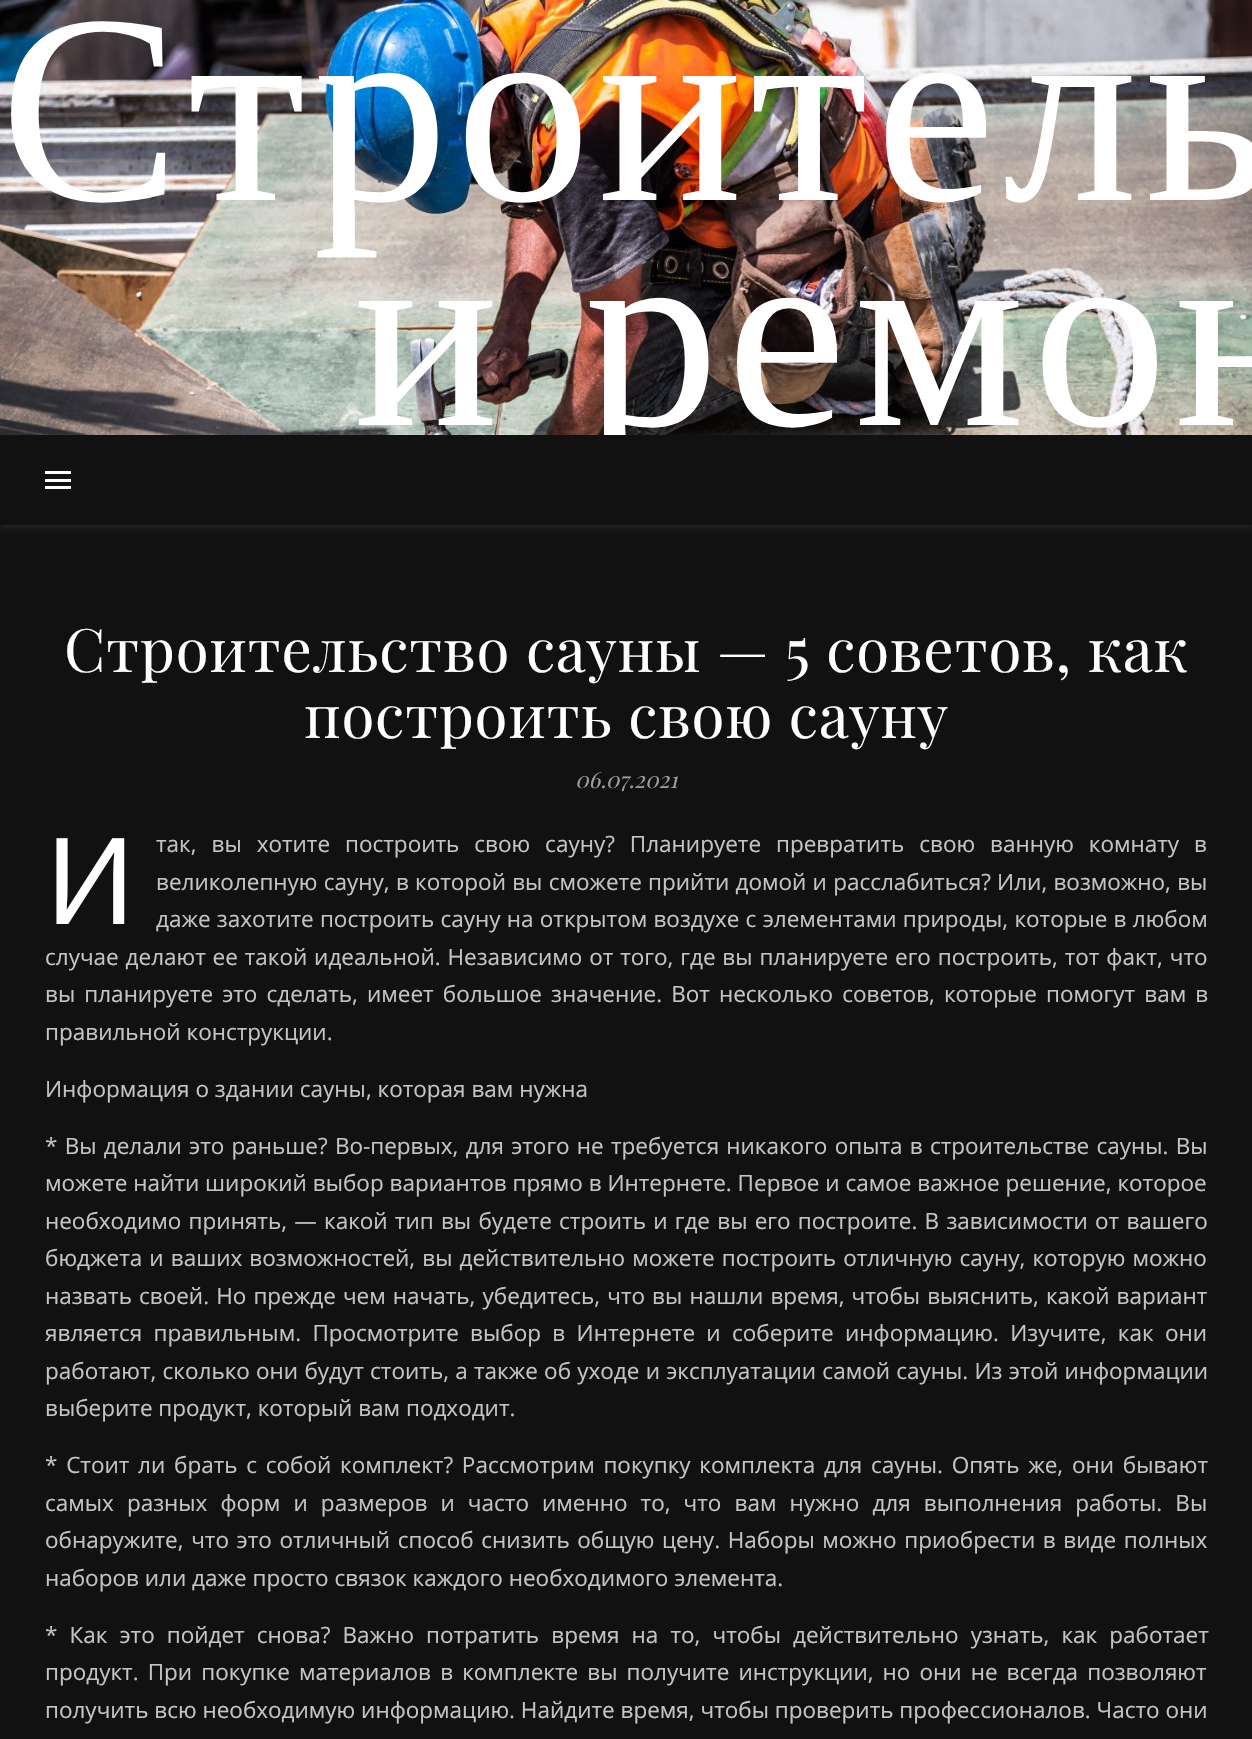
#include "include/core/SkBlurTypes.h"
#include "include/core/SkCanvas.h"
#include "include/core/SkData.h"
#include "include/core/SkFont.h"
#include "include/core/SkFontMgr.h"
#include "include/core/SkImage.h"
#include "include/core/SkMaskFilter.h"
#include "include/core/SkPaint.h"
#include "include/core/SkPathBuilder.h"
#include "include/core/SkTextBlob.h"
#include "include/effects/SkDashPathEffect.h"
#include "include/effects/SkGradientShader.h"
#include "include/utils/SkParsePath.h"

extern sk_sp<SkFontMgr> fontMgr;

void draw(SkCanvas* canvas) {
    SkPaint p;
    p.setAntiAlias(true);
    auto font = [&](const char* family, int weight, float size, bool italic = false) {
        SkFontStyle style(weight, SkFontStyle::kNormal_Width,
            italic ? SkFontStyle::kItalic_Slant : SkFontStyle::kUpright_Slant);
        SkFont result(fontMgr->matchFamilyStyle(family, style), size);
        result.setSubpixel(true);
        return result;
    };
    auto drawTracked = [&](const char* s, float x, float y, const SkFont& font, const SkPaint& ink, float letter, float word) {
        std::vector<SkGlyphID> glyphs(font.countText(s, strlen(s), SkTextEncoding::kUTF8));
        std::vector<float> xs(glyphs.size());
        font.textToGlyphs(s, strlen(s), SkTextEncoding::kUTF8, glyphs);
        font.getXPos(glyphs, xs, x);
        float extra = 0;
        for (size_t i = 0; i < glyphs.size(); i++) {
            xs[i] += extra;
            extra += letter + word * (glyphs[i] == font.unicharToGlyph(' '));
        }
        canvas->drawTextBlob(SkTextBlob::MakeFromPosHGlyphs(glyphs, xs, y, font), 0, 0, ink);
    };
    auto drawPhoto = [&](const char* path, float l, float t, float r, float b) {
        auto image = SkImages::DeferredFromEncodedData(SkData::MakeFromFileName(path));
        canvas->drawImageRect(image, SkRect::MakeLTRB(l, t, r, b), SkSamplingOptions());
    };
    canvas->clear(0xFF111111);
    drawPhoto("media/1.png", 0, 0, 1252, 435);
    auto font1 = font("Liberation Serif", 400, 270);
    p.setColor(0xFFFFFFFF);
    drawTracked("Строитель", 0, 200, font1, p, 7.5f, 0);
    canvas->save();
    canvas->clipRect(SkRect::MakeLTRB(0, 0, 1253, 435));
    drawTracked("и ремон", 354, 425, font1, p, 7.5f, 3);
    canvas->restore();
    canvas->save();
    canvas->clipPath(SkPathBuilder(SkPathFillType::kEvenOdd).moveTo(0, 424).lineTo(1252, 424).lineTo(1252, 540).lineTo(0, 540).close().moveTo(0, 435).lineTo(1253, 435).lineTo(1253, 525).lineTo(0, 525).close().detach(), true);
    p.setColor(0x1AFFFFFF);
    p.setMaskFilter(SkMaskFilter::MakeBlur(kNormal_SkBlurStyle, 4));
    canvas->drawRect(SkRect::MakeLTRB(0, 437, 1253, 527), p);
    p.setMaskFilter(nullptr);
    canvas->restore();
    {
        const struct { float l, t, r, b; SkColor color; } items[] = {
            {45, 471, 71, 474, 0xFFFFFFFF},
            {45, 479, 71, 482, 0xFFFFFFFF},
            {45, 486, 71, 489, 0xFFFFFFFF},
        };
        for (auto [l, t, r, b, color] : items) {
            p.setColor(color);
            canvas->drawRect(SkRect::MakeLTRB(l, t, r, b), p);
        }
    }
    auto font2 = font("Playfair Display", 400, 60);
    drawTracked("Строительство сауны — 5 советов, как", 64, 672, font2, p, 0.75f, 0);
    drawTracked("построить свою сауну", 304, 738, font2, p, 0.75f, 0);
    auto font3 = font("Playfair Display", 400, 22.5f, true);
    p.setColor(0xFF9E9E9E);
    canvas->drawString("06.07.2021", 575, 788, font3, p);
    auto font4 = font("Noto Sans", 400, 120);
    p.setColor(0xFFFFFFFF);
    canvas->drawString("И", 45, 924, font4, p);
    auto font5 = font("Open Sans", 400, 22.5f);
    p.setColor(0xFFC4C4C4);
    drawTracked("так, вы хотите построить свою сауну? Планируете превратить свою ванную комнату в", 156, 852, font5, p, 0, 9.1f);
    drawTracked("великолепную сауну, в которой вы сможете прийти домой и расслабиться? Или, возможно, вы", 156, 890, font5, p, 0, 0.4f);
    drawTracked("даже захотите построить сауну на открытом воздухе с элементами природы, которые в любом", 156, 927, font5, p, 0, 0.4f);
    drawTracked("случае делают ее такой идеальной. Независимо от того, где вы планируете его построить, тот факт, что", 45, 965, font5, p, 0, 1);
    drawTracked("вы планируете это сделать, имеет большое значение. Вот несколько советов, которые помогут вам в", 45, 1002, font5, p, 0, 3.25f);
    canvas->drawString("правильной конструкции.", 45, 1040, font5, p);
    canvas->drawString("Информация о здании сауны, которая вам нужна", 45, 1097, font5, p);
    drawTracked("* Вы делали это раньше? Во-первых, для этого не требуется никакого опыта в строительстве сауны. Вы", 45, 1154, font5, p, 0, 1.4f);
    canvas->drawString("можете найти широкий выбор вариантов прямо в Интернете. Первое и самое важное решение, которое", 45, 1191, font5, p);
    drawTracked("необходимо принять, — какой тип вы будете строить и где вы его построите. В зависимости от вашего", 45, 1229, font5, p, 0, 1.4f);
    drawTracked("бюджета и ваших возможностей, вы действительно можете построить отличную сауну, которую можно", 45, 1266, font5, p, 0, 1.25f);
    drawTracked("назвать своей. Но прежде чем начать, убедитесь, что вы нашли время, чтобы выяснить, какой вариант", 45, 1304, font5, p, 0, 1.25f);
    drawTracked("является правильным. Просмотрите выбор в Интернете и соберите информацию. Изучите, как они", 45, 1341, font5, p, 0, 5.5f);
    drawTracked("работают, сколько они будут стоить, а также об уходе и эксплуатации самой сауны. Из этой информации", 45, 1379, font5, p, 0, 0.4f);
    canvas->drawString("выберите продукт, который вам подходит.", 45, 1416, font5, p);
    drawTracked("* Стоит ли брать с собой комплект? Рассмотрим покупку комплекта для сауны. Опять же, они бывают", 45, 1473, font5, p, 0, 2.9f);
    drawTracked("самых разных форм и размеров и часто именно то, что вам нужно для выполнения работы. Вы", 45, 1511, font5, p, 0, 7.25f);
    drawTracked("обнаружите, что это отличный способ снизить общую цену. Наборы можно приобрести в виде полных", 45, 1548, font5, p, 0, 1.75f);
    canvas->drawString("наборов или даже просто связок каждого необходимого элемента.", 45, 1586, font5, p);
    drawTracked("* Как это пойдет снова? Важно потратить время на то, чтобы действительно узнать, как работает", 45, 1643, font5, p, 0, 6.25f);
    drawTracked("продукт. При покупке материалов в комплекте вы получите инструкции, но они не всегда позволяют", 45, 1680, font5, p, 0, 3.25f);
    canvas->drawString("получить всю необходимую информацию. Найдите время, чтобы проверить профессионалов. Часто они", 45, 1718, font5, p);
}
